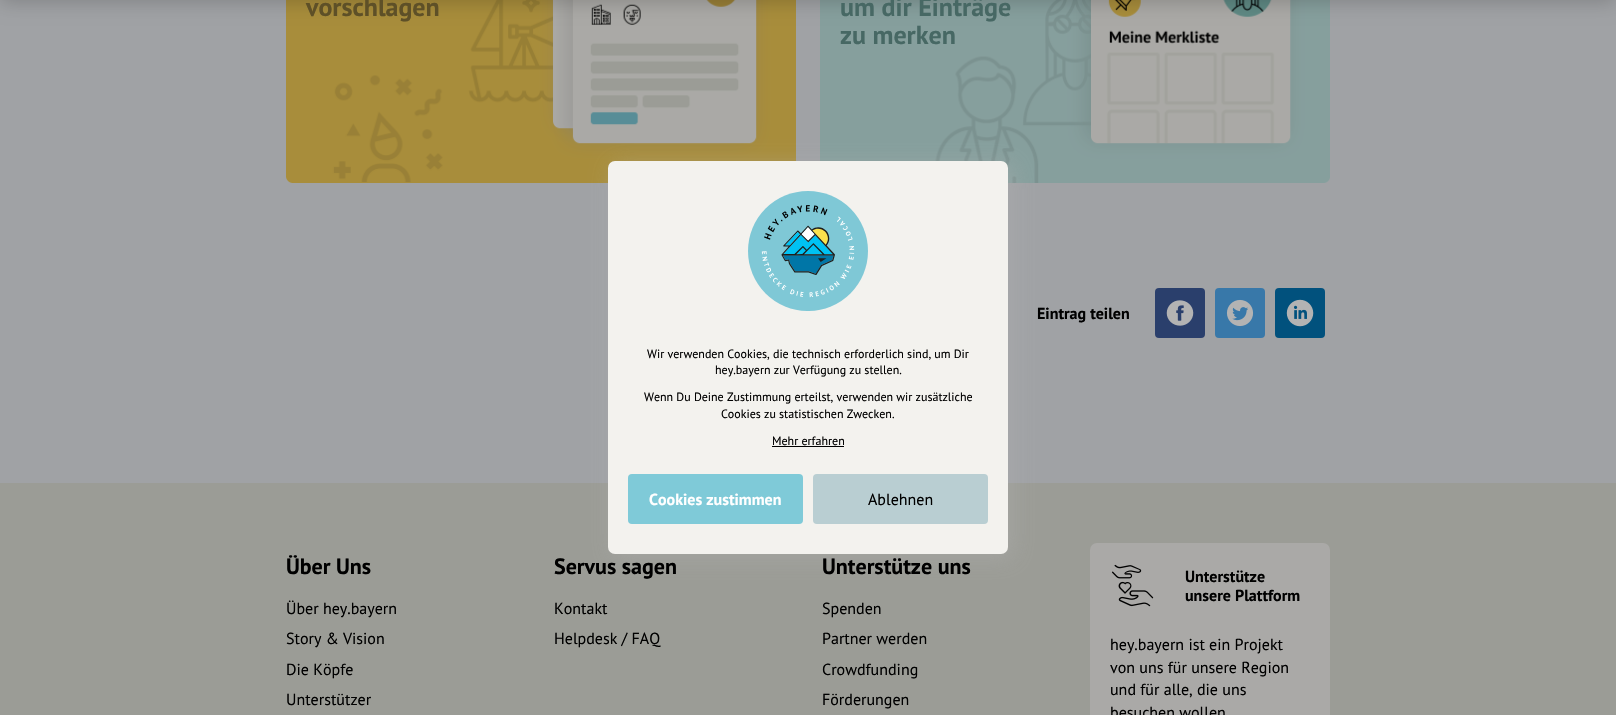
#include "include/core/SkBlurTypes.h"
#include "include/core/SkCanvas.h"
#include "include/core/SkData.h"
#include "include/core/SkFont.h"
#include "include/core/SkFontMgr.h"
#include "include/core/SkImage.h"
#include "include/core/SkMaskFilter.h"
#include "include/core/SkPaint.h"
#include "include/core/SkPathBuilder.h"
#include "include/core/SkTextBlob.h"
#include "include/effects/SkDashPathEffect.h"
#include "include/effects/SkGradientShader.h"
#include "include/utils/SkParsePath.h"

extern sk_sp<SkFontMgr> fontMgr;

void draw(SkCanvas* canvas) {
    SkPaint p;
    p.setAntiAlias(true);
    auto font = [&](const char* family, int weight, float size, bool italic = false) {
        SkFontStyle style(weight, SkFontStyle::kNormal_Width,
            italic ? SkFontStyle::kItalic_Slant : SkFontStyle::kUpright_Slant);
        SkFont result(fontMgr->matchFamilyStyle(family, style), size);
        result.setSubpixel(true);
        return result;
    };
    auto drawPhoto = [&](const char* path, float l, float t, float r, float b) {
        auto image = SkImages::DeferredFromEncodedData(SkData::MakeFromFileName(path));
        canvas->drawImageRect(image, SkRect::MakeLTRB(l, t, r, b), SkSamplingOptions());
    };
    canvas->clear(0xFFA0A2A5);
    drawPhoto("media/1.png", 286, 0, 796, 183);
    drawPhoto("media/2.png", 820, 0, 1330, 183);
    p.setColor(0x33000000);
    p.setMaskFilter(SkMaskFilter::MakeBlur(kNormal_SkBlurStyle, 10));
    canvas->drawRect(SkRect::MakeLTRB(0, -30, 1616, 2), p);
    p.setMaskFilter(nullptr);
    auto font1 = font("PT Sans", 700, 26);
    p.setColor(0xFF5E5027);
    canvas->drawString("vorschlagen", 306, 16, font1, p);
    p.setColor(0xFF476864);
    canvas->drawString("um dir Einträge", 840, 16, font1, p);
    canvas->drawString("zu merken", 840, 44, font1, p);
    auto font2 = font("PT Sans", 700, 16);
    p.setColor(0xFF000000);
    canvas->drawString("Eintrag teilen", 1037, 319, font2, p);
    p.setColor(0xFF2A3F6C);
    canvas->drawRoundRect(SkRect::MakeLTRB(1155, 288, 1205, 338), 4, 4, p);
    drawPhoto("media/3.png", 1166, 300, 1194, 326);
    p.setColor(0xFF3878A9);
    canvas->drawRoundRect(SkRect::MakeLTRB(1215, 288, 1265, 338), 4, 4, p);
    drawPhoto("media/4.png", 1226, 299, 1254, 327);
    p.setColor(0xFF01517D);
    canvas->drawRoundRect(SkRect::MakeLTRB(1275, 288, 1325, 338), 4, 4, p);
    drawPhoto("media/5.png", 1286, 299, 1314, 327);
    p.setColor(0xFF9B9C96);
    canvas->drawRect(SkRect::MakeLTRB(0, 483, 1616, 715), p);
    p.setColor(0x66B1B1B1);
    p.setMaskFilter(SkMaskFilter::MakeBlur(kNormal_SkBlurStyle, 10.5f));
    canvas->drawRoundRect(SkRect::MakeLTRB(613, 165, 1013, 558), 7, 7, p);
    p.setMaskFilter(nullptr);
    p.setColor(0xFFF3F2EE);
    canvas->drawRoundRect(SkRect::MakeLTRB(608, 161, 1008, 554), 7, 7, p);
    drawPhoto("media/6.png", 748, 191, 868, 311);
    auto font3 = font("PT Sans", 400, 12);
    p.setColor(0xFF000000);
    {
        const struct { const char* s; float x, y; } items[] = {
            {"Wir verwenden Cookies, die technisch erforderlich sind, um Dir", 647, 358},
            {"hey.bayern zur Verfügung zu stellen.", 715, 374},
            {"Wenn Du Deine Zustimmung erteilst, verwenden wir zusätzliche", 644, 401},
            {"Cookies zu statistischen Zwecken.", 721, 418},
            {"Mehr erfahren", 772, 445},
        };
        for (auto [s, x, y] : items) {
            canvas->drawString(s, x, y, font3, p);
        }
    }
    canvas->drawRect(SkRect::MakeLTRB(772, 446, 844, 447), p);
    p.setColor(0xFF7FCAD8);
    canvas->drawRoundRect(SkRect::MakeLTRB(628, 474, 803, 524), 4, 4, p);
    p.setColor(0xFFFFFFFF);
    canvas->drawString("Cookies zustimmen", 649, 505, font2, p);
    p.setColor(0xFFB9CED2);
    canvas->drawRoundRect(SkRect::MakeLTRB(813, 474, 988, 524), 4, 4, p);
    auto font4 = font("PT Sans", 400, 16);
    p.setColor(0xFF000000);
    canvas->drawString("Ablehnen", 868, 505, font4, p);
    auto font5 = font("PT Sans", 700, 22);
    canvas->drawString("Über Uns", 286, 574, font5, p);
    {
        const struct { const char* s; float x, y; } items[] = {
            {"Über hey.bayern", 286, 614},
            {"Story & Vision", 286, 644},
            {"Die Köpfe", 286, 675},
            {"Unterstützer", 286, 705},
        };
        for (auto [s, x, y] : items) {
            canvas->drawString(s, x, y, font4, p);
        }
    }
    canvas->drawString("Servus sagen", 554, 574, font5, p);
    canvas->drawString("Kontakt", 554, 614, font4, p);
    canvas->drawString("Helpdesk / FAQ", 554, 644, font4, p);
    canvas->drawString("Unterstütze uns", 822, 574, font5, p);
    {
        const struct { const char* s; float x, y; } items[] = {
            {"Spenden", 822, 614},
            {"Partner werden", 822, 644},
            {"Crowdfunding", 822, 675},
            {"Förderungen", 822, 705},
        };
        for (auto [s, x, y] : items) {
            canvas->drawString(s, x, y, font4, p);
        }
    }
    p.setColor(0xFFAAA9A7);
    canvas->drawRoundRect(SkRect::MakeLTRB(1090, 543, 1330, 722), 7, 7, p);
    drawPhoto("media/7.png", 1111, 564, 1154, 607);
    p.setColor(0xFF000000);
    canvas->drawString("Unterstütze", 1185, 582, font2, p);
    canvas->drawString("unsere Plattform", 1185, 601, font2, p);
    {
        const struct { const char* s; float x, y; } items[] = {
            {"hey.bayern ist ein Projekt", 1110, 650},
            {"von uns für unsere Region", 1110, 673},
            {"und für alle, die uns", 1110, 695},
            {"besuchen wollen", 1110, 718},
        };
        for (auto [s, x, y] : items) {
            canvas->drawString(s, x, y, font4, p);
        }
    }
}
